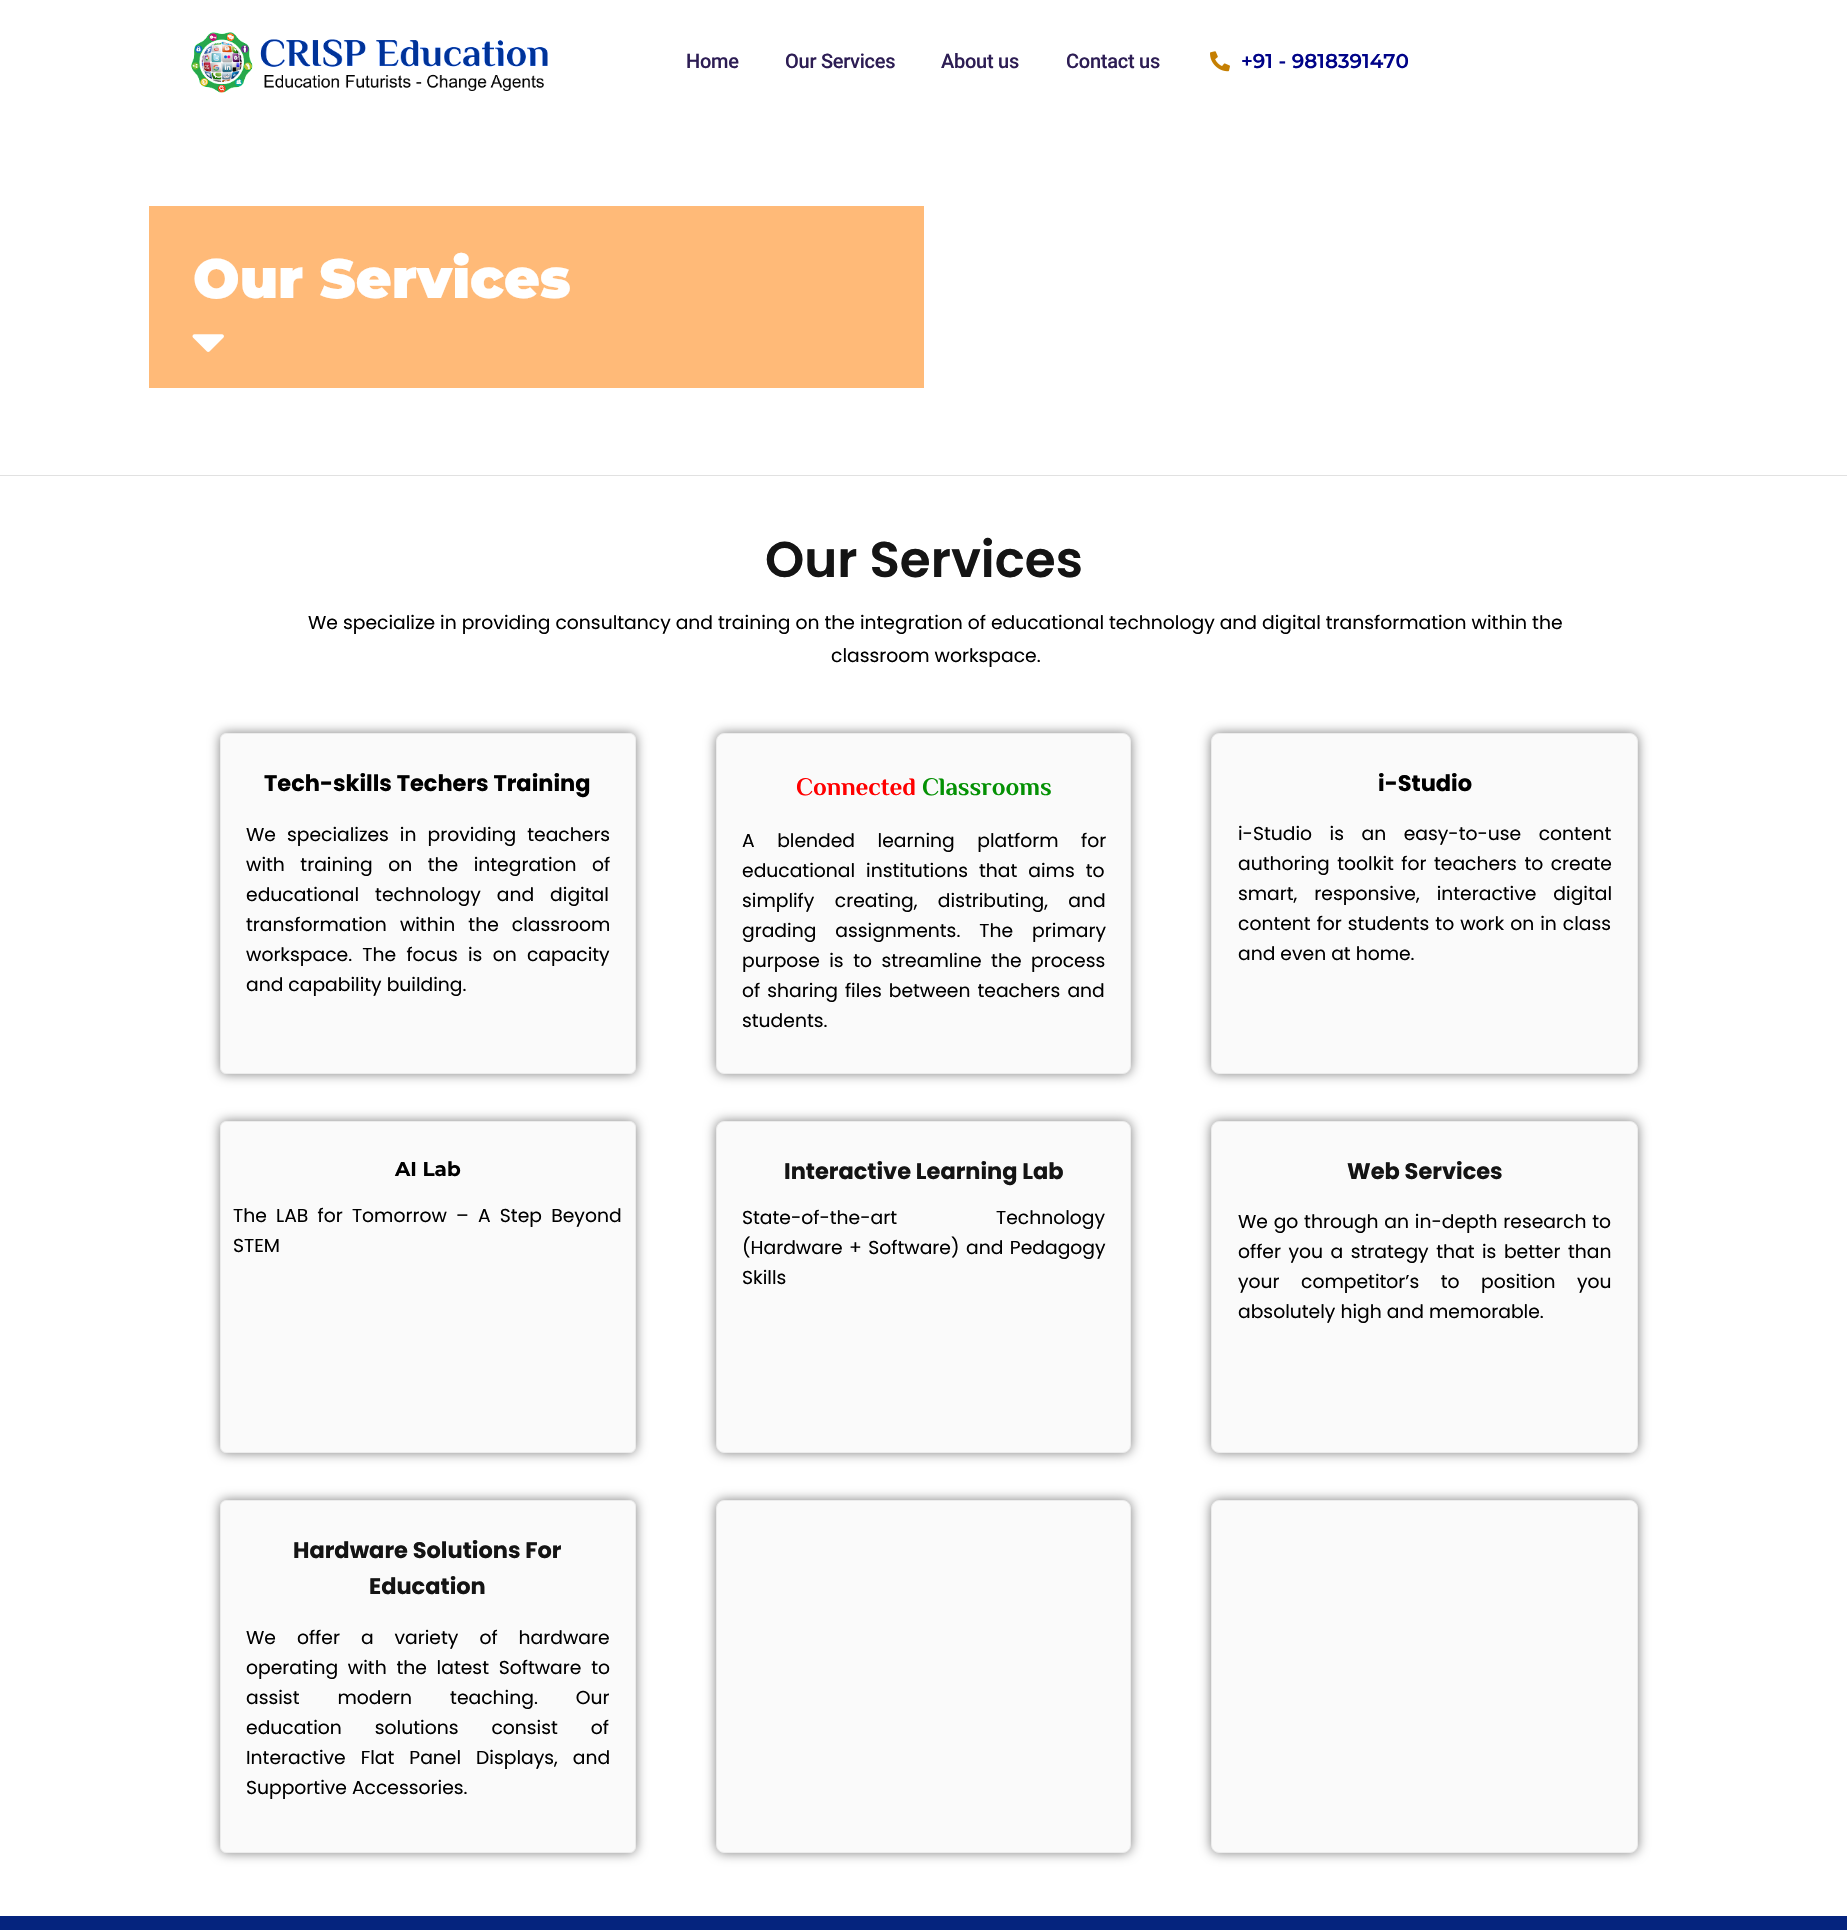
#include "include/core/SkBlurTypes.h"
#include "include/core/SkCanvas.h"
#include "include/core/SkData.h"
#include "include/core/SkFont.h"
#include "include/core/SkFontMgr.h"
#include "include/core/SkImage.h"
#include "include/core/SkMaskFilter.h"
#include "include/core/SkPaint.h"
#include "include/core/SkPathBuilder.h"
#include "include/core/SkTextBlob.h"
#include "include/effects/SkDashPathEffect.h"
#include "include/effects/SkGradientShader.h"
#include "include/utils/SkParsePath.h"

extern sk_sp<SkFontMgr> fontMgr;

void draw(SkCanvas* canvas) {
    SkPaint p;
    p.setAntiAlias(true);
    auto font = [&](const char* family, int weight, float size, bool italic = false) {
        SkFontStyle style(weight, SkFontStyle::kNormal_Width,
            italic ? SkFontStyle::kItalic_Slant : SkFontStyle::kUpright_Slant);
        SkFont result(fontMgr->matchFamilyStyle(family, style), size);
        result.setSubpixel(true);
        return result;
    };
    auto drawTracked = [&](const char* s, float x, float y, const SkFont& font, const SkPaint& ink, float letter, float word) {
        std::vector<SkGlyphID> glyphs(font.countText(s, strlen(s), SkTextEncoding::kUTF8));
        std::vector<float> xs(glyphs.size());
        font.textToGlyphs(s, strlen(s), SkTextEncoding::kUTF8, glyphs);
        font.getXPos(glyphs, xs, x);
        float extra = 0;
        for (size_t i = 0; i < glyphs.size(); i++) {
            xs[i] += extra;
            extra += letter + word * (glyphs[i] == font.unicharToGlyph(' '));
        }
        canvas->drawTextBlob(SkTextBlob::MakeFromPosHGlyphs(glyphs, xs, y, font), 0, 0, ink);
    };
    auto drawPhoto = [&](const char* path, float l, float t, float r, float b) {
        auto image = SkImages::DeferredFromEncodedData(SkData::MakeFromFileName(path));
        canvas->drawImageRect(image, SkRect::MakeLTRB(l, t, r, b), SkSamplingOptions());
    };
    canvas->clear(0xFFFFFFFF);
    drawPhoto("media/1.png", 191, 32, 548, 93);
    auto font1 = font("Roboto", 500, 20);
    p.setColor(0xFF2D1D54);
    {
        const struct { const char* s; float x, y; } items[] = {
            {"Home", 686, 68},
            {"Our Services", 785, 68},
            {"About us", 941, 68},
            {"Contact us", 1066, 68},
        };
        for (auto [s, x, y] : items) {
            drawTracked(s, x, y, font1, p, -0.25f, 0);
        }
    }
    drawPhoto("media/2.png", 1210, 51, 1230, 72);
    auto font2 = font("Montserrat", 600, 20);
    p.setColor(0xFF000388);
    canvas->drawString("+91 - 9818391470", 1241, 68, font2, p);
    p.setColor(0xFFE1E1E1);
    canvas->drawRect(SkRect::MakeLTRB(0, 475, 1847, 476), p);
    p.setColor(0xFFFFBA78);
    canvas->drawRect(SkRect::MakeLTRB(149, 206, 924, 388), p);
    auto font3 = font("Montserrat", 900, 55);
    p.setColor(0xFFFFFFFF);
    canvas->drawString("Our Services", 193, 298, font3, p);
    drawPhoto("media/3.png", 192, 334, 224, 352);
    auto font4 = font("Poppins", 600, 50);
    p.setColor(0xFF141414);
    canvas->drawString("Our Services", 765, 577, font4, p);
    auto font5 = font("Poppins", 400, 18.75f);
    p.setColor(0xFF000000);
    canvas->drawString("We specialize in providing consultancy and training on the integration of educational technology and digital transformation within the", 308, 629, font5, p);
    canvas->drawString("classroom workspace.", 831, 662, font5, p);
    p.setColor(0x80000000);
    p.setMaskFilter(SkMaskFilter::MakeBlur(kNormal_SkBlurStyle, 6));
    canvas->drawRoundRect(SkRect::MakeLTRB(220, 733, 636, 1074), 6, 6, p);
    p.setMaskFilter(nullptr);
    p.setColor(0xFFFAFAFA);
    canvas->drawRoundRect(SkRect::MakeLTRB(220.5f, 733.5f, 635.5f, 1073.5f), 5.5f, 5.5f, p);
    p.setStyle(SkPaint::kStroke_Style);
    p.setStrokeWidth(1);
    p.setColor(0xFFECECEC);
    canvas->drawRoundRect(SkRect::MakeLTRB(220.5f, 733.5f, 635.5f, 1073.5f), 5.5f, 5.5f, p);
    auto font6 = font("Poppins", 700, 22.5f);
    p.setStyle(SkPaint::kFill_Style);
    p.setColor(0xFF000000);
    canvas->drawString("Tech-skills Techers Training", 264, 791, font6, p);
    drawTracked("We specializes in providing teachers", 246, 841, font5, p, 0, 6);
    drawTracked("with training on the integration of", 246, 871, font5, p, 0, 10.5f);
    drawTracked("educational technology and digital", 246, 901, font5, p, 0, 11);
    drawTracked("transformation within the classroom", 246, 931, font5, p, 0, 8);
    drawTracked("workspace. The focus is on capacity", 246, 961, font5, p, 0, 5.25f);
    canvas->drawString("and capability building.", 246, 991, font5, p);
    p.setColor(0x80000000);
    p.setMaskFilter(SkMaskFilter::MakeBlur(kNormal_SkBlurStyle, 6));
    canvas->drawRoundRect(SkRect::MakeLTRB(716, 733, 1131, 1074), 8, 8, p);
    p.setMaskFilter(nullptr);
    p.setColor(0xFFFAFAFA);
    canvas->drawRoundRect(SkRect::MakeLTRB(716.5f, 733.5f, 1130.5f, 1073.5f), 7.5f, 7.5f, p);
    p.setStyle(SkPaint::kStroke_Style);
    p.setColor(0xFFECECEC);
    canvas->drawRoundRect(SkRect::MakeLTRB(716.5f, 733.5f, 1130.5f, 1073.5f), 7.5f, 7.5f, p);
    auto font7 = font("Philosopher", 700, 25);
    p.setStyle(SkPaint::kFill_Style);
    p.setColor(0xFFFF0000);
    canvas->drawString("Connected", 796, 795, font7, p);
    p.setColor(0xFF049104);
    canvas->drawString("Classrooms", 922, 795, font7, p);
    p.setColor(0xFF000000);
    drawTracked("A blended learning platform for", 742, 847, font5, p, 0, 17.5f);
    drawTracked("educational institutions that aims to", 742, 877, font5, p, 0, 6);
    drawTracked("simplify creating, distributing, and", 742, 907, font5, p, 0, 15.5f);
    drawTracked("grading assignments. The primary", 742, 937, font5, p, 0, 14);
    drawTracked("purpose is to streamline the process", 742, 967, font5, p, 0, 4.5f);
    drawTracked("of sharing files between teachers and", 742, 997, font5, p, 0, 2);
    canvas->drawString("students.", 742, 1027, font5, p);
    p.setColor(0x80000000);
    p.setMaskFilter(SkMaskFilter::MakeBlur(kNormal_SkBlurStyle, 6));
    canvas->drawRoundRect(SkRect::MakeLTRB(1211, 733, 1638, 1074), 8, 8, p);
    p.setMaskFilter(nullptr);
    p.setColor(0xFFFAFAFA);
    canvas->drawRoundRect(SkRect::MakeLTRB(1211.5f, 733.5f, 1637.5f, 1073.5f), 7.5f, 7.5f, p);
    p.setStyle(SkPaint::kStroke_Style);
    p.setColor(0xFFECECEC);
    canvas->drawRoundRect(SkRect::MakeLTRB(1211.5f, 733.5f, 1637.5f, 1073.5f), 7.5f, 7.5f, p);
    p.setStyle(SkPaint::kFill_Style);
    p.setColor(0xFF000000);
    canvas->drawString("i-Studio", 1378, 791, font6, p);
    drawTracked("i-Studio is an easy-to-use content", 1238, 840, font5, p, 0, 12.5f);
    drawTracked("authoring toolkit for teachers to create", 1238, 870, font5, p, 0, 2.5f);
    drawTracked("smart, responsive, interactive digital", 1238, 900, font5, p, 0, 12);
    drawTracked("content for students to work on in class", 1238, 930, font5, p, 0, 1);
    canvas->drawString("and even at home.", 1238, 960, font5, p);
    p.setColor(0x80000000);
    p.setMaskFilter(SkMaskFilter::MakeBlur(kNormal_SkBlurStyle, 6));
    canvas->drawRoundRect(SkRect::MakeLTRB(220, 1121, 636, 1453), 6, 6, p);
    p.setMaskFilter(nullptr);
    p.setColor(0xFFFAFAFA);
    canvas->drawRoundRect(SkRect::MakeLTRB(220.5f, 1121.5f, 635.5f, 1452.5f), 5.5f, 5.5f, p);
    p.setStyle(SkPaint::kStroke_Style);
    p.setColor(0xFFECECEC);
    canvas->drawRoundRect(SkRect::MakeLTRB(220.5f, 1121.5f, 635.5f, 1452.5f), 5.5f, 5.5f, p);
    auto font8 = font("Montserrat", 700, 20);
    p.setStyle(SkPaint::kFill_Style);
    p.setColor(0xFF000000);
    canvas->drawString("AI Lab", 395, 1176, font8, p);
    drawTracked("The LAB for Tomorrow – A Step Beyond", 233, 1222, font5, p, 0, 4.25f);
    canvas->drawString("STEM", 233, 1252, font5, p);
    p.setColor(0x80000000);
    p.setMaskFilter(SkMaskFilter::MakeBlur(kNormal_SkBlurStyle, 6));
    canvas->drawRoundRect(SkRect::MakeLTRB(716, 1121, 1131, 1453), 8, 8, p);
    p.setMaskFilter(nullptr);
    p.setColor(0xFFFAFAFA);
    canvas->drawRoundRect(SkRect::MakeLTRB(716.5f, 1121.5f, 1130.5f, 1452.5f), 7.5f, 7.5f, p);
    p.setStyle(SkPaint::kStroke_Style);
    p.setColor(0xFFECECEC);
    canvas->drawRoundRect(SkRect::MakeLTRB(716.5f, 1121.5f, 1130.5f, 1452.5f), 7.5f, 7.5f, p);
    p.setStyle(SkPaint::kFill_Style);
    p.setColor(0xFF141414);
    canvas->drawString("Interactive Learning Lab", 784, 1179, font6, p);
    p.setColor(0xFF000000);
    drawTracked("State-of-the-art Technology", 742, 1224, font5, p, 0, 94);
    drawTracked("(Hardware + Software) and Pedagogy", 742, 1254, font5, p, 0, 1.5f);
    canvas->drawString("Skills", 742, 1284, font5, p);
    p.setColor(0x80000000);
    p.setMaskFilter(SkMaskFilter::MakeBlur(kNormal_SkBlurStyle, 6));
    canvas->drawRoundRect(SkRect::MakeLTRB(1211, 1121, 1638, 1453), 8, 8, p);
    p.setMaskFilter(nullptr);
    p.setColor(0xFFFAFAFA);
    canvas->drawRoundRect(SkRect::MakeLTRB(1211.5f, 1121.5f, 1637.5f, 1452.5f), 7.5f, 7.5f, p);
    p.setStyle(SkPaint::kStroke_Style);
    p.setColor(0xFFECECEC);
    canvas->drawRoundRect(SkRect::MakeLTRB(1211.5f, 1121.5f, 1637.5f, 1452.5f), 7.5f, 7.5f, p);
    p.setStyle(SkPaint::kFill_Style);
    p.setColor(0xFF141414);
    canvas->drawString("Web Services", 1347, 1179, font6, p);
    p.setColor(0xFF000000);
    drawTracked("We go through an in-depth research to", 1238, 1228, font5, p, 0, 0.75f);
    drawTracked("offer you a strategy that is better than", 1238, 1258, font5, p, 0, 2.5f);
    drawTracked("your competitor’s to position you", 1238, 1288, font5, p, 0, 16.5f);
    canvas->drawString("absolutely high and memorable.", 1238, 1318, font5, p);
    p.setColor(0x80000000);
    p.setMaskFilter(SkMaskFilter::MakeBlur(kNormal_SkBlurStyle, 6));
    canvas->drawRoundRect(SkRect::MakeLTRB(220, 1500, 636, 1853), 6, 6, p);
    p.setMaskFilter(nullptr);
    p.setColor(0xFFFAFAFA);
    canvas->drawRoundRect(SkRect::MakeLTRB(220.5f, 1500.5f, 635.5f, 1852.5f), 5.5f, 5.5f, p);
    p.setStyle(SkPaint::kStroke_Style);
    p.setColor(0xFFECECEC);
    canvas->drawRoundRect(SkRect::MakeLTRB(220.5f, 1500.5f, 635.5f, 1852.5f), 5.5f, 5.5f, p);
    p.setStyle(SkPaint::kFill_Style);
    p.setColor(0xFF141414);
    canvas->drawString("Hardware Solutions For", 293, 1558, font6, p);
    canvas->drawString("Education", 369, 1594, font6, p);
    p.setColor(0xFF000000);
    drawTracked("We offer a variety of hardware", 246, 1644, font5, p, 0, 16);
    drawTracked("operating with the latest Software to", 246, 1674, font5, p, 0, 4.75f);
    drawTracked("assist modern teaching. Our", 246, 1704, font5, p, 0, 33);
    drawTracked("education solutions consist of", 246, 1734, font5, p, 0, 28);
    drawTracked("Interactive Flat Panel Displays, and", 246, 1764, font5, p, 0, 10);
    canvas->drawString("Supportive Accessories.", 246, 1794, font5, p);
    p.setColor(0x80000000);
    p.setMaskFilter(SkMaskFilter::MakeBlur(kNormal_SkBlurStyle, 6));
    canvas->drawRoundRect(SkRect::MakeLTRB(716, 1500, 1131, 1853), 8, 8, p);
    p.setMaskFilter(nullptr);
    p.setColor(0xFFFAFAFA);
    canvas->drawRoundRect(SkRect::MakeLTRB(716.5f, 1500.5f, 1130.5f, 1852.5f), 7.5f, 7.5f, p);
    p.setStyle(SkPaint::kStroke_Style);
    p.setColor(0xFFECECEC);
    canvas->drawRoundRect(SkRect::MakeLTRB(716.5f, 1500.5f, 1130.5f, 1852.5f), 7.5f, 7.5f, p);
    p.setStyle(SkPaint::kFill_Style);
    p.setColor(0x80000000);
    p.setMaskFilter(SkMaskFilter::MakeBlur(kNormal_SkBlurStyle, 6));
    canvas->drawRoundRect(SkRect::MakeLTRB(1211, 1500, 1638, 1853), 8, 8, p);
    p.setMaskFilter(nullptr);
    p.setColor(0xFFFAFAFA);
    canvas->drawRoundRect(SkRect::MakeLTRB(1211.5f, 1500.5f, 1637.5f, 1852.5f), 7.5f, 7.5f, p);
    p.setStyle(SkPaint::kStroke_Style);
    p.setColor(0xFFECECEC);
    canvas->drawRoundRect(SkRect::MakeLTRB(1211.5f, 1500.5f, 1637.5f, 1852.5f), 7.5f, 7.5f, p);
    p.setStyle(SkPaint::kFill_Style);
    p.setColor(0xFF05247E);
    canvas->drawRect(SkRect::MakeLTRB(0, 1916, 1847, 1930), p);
}
